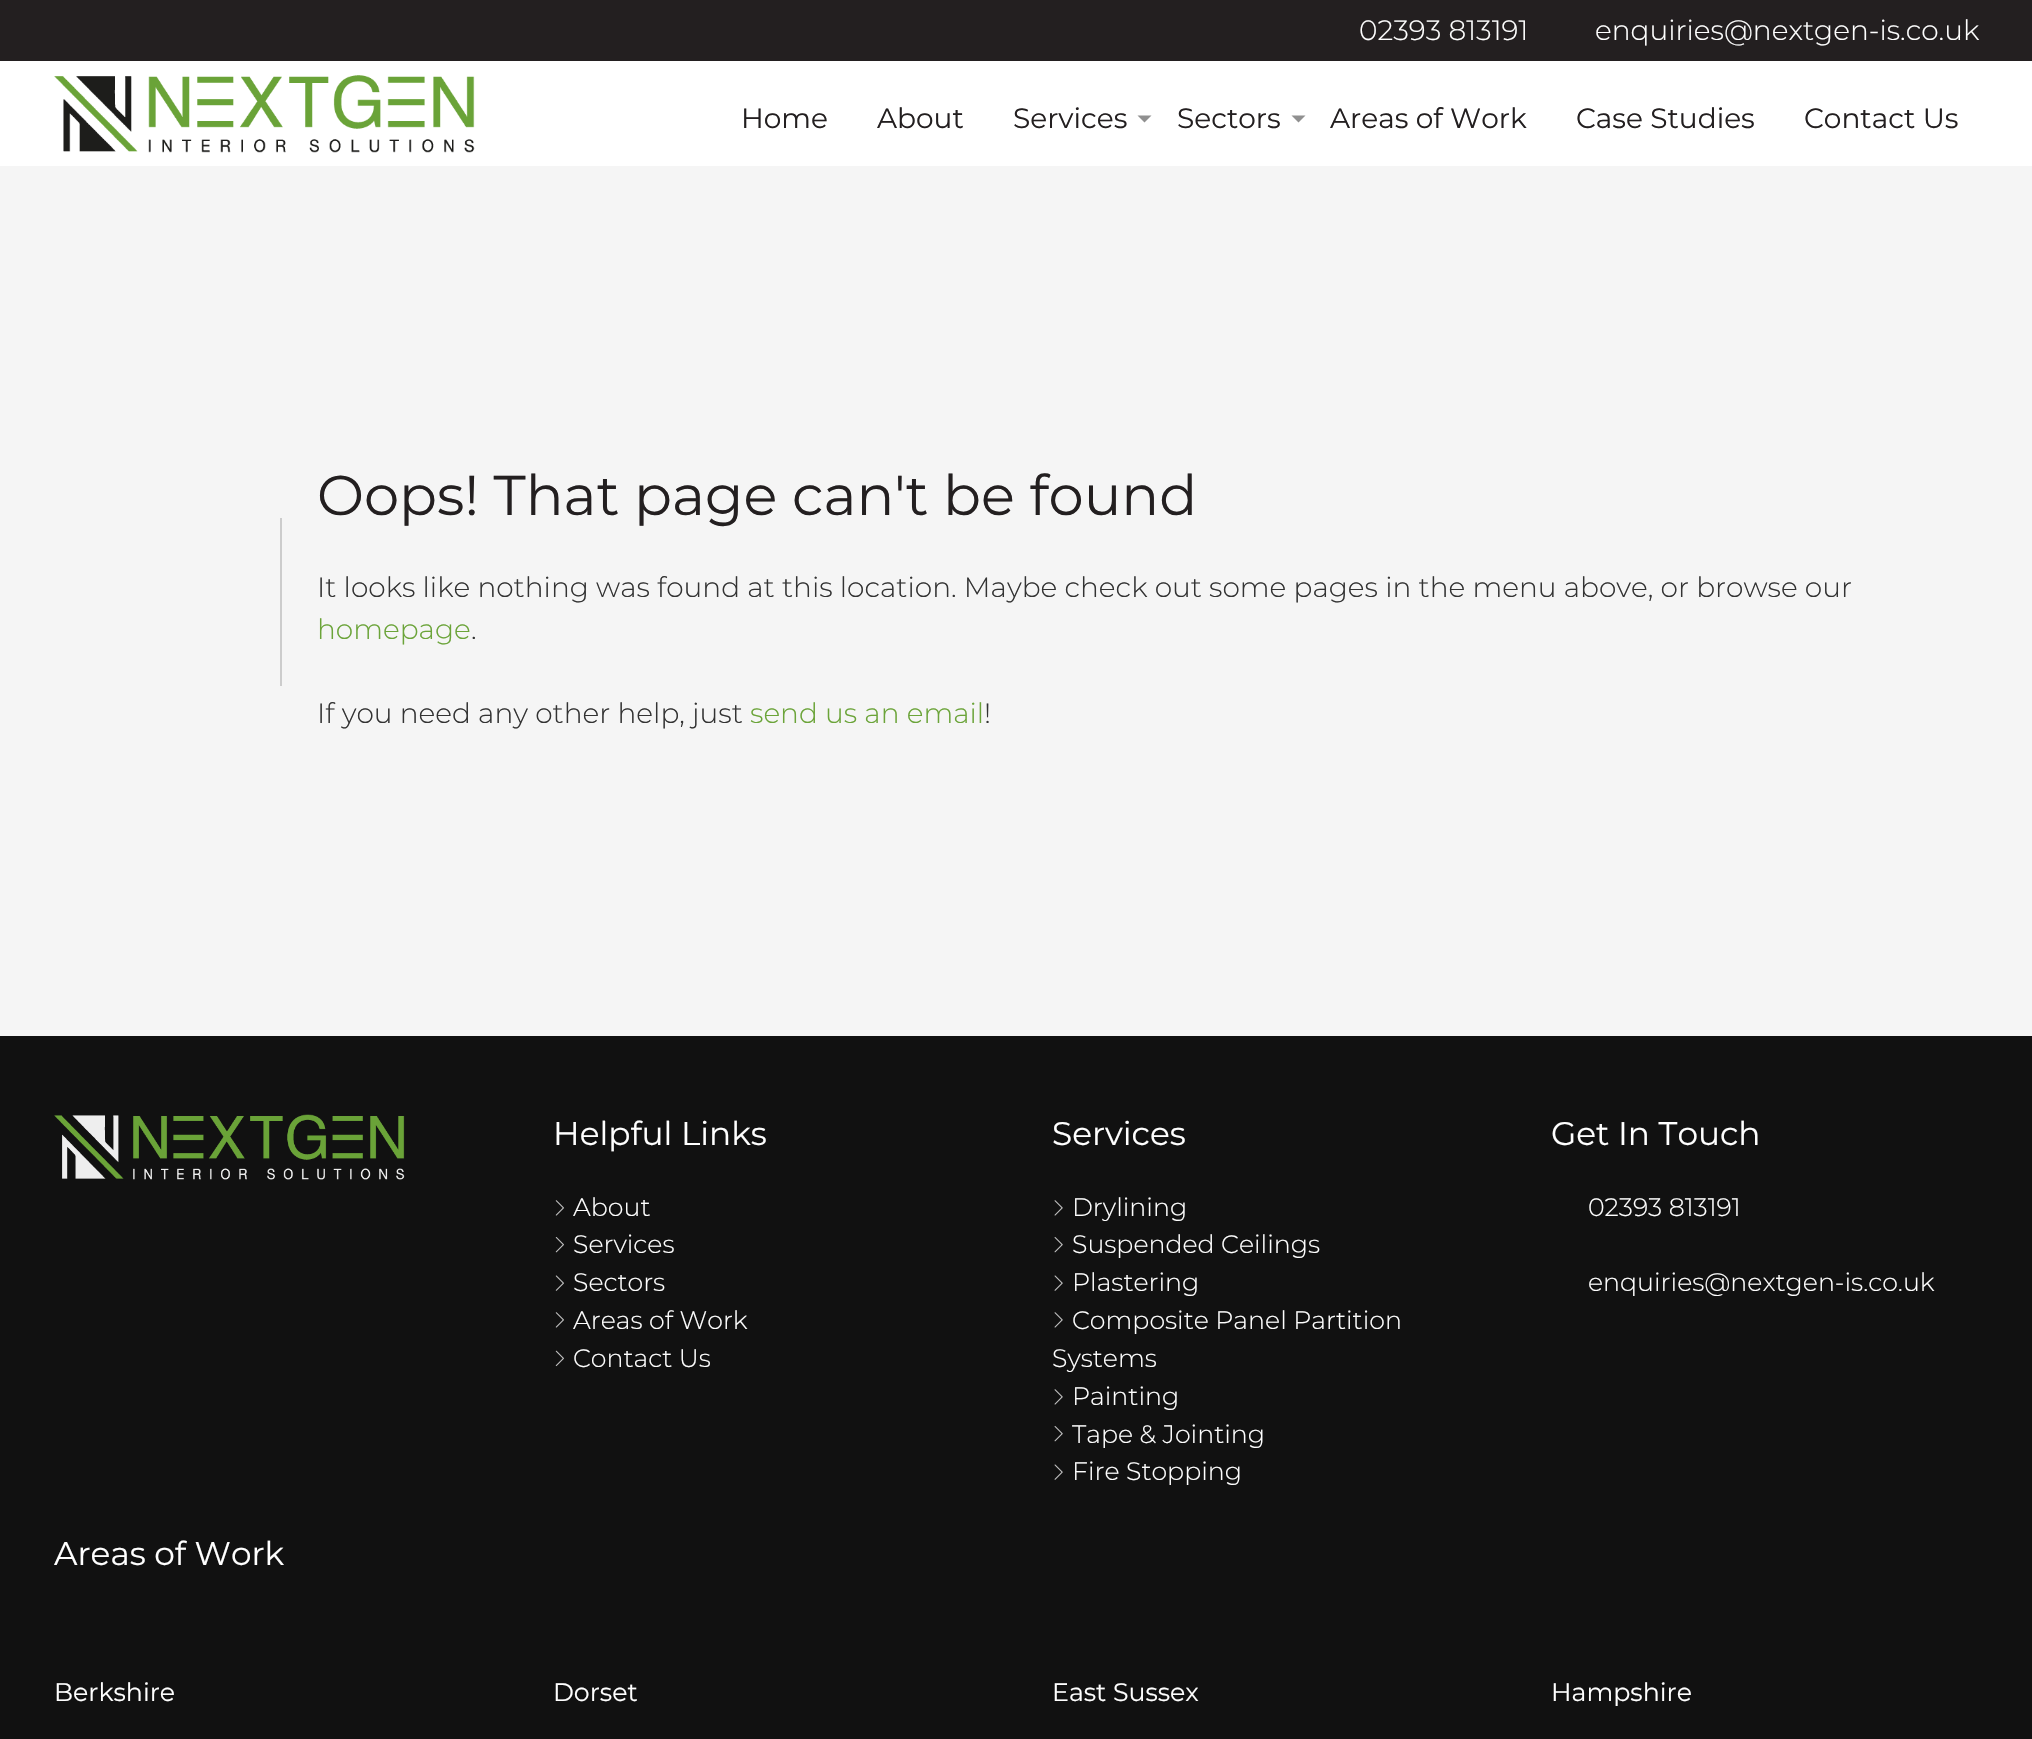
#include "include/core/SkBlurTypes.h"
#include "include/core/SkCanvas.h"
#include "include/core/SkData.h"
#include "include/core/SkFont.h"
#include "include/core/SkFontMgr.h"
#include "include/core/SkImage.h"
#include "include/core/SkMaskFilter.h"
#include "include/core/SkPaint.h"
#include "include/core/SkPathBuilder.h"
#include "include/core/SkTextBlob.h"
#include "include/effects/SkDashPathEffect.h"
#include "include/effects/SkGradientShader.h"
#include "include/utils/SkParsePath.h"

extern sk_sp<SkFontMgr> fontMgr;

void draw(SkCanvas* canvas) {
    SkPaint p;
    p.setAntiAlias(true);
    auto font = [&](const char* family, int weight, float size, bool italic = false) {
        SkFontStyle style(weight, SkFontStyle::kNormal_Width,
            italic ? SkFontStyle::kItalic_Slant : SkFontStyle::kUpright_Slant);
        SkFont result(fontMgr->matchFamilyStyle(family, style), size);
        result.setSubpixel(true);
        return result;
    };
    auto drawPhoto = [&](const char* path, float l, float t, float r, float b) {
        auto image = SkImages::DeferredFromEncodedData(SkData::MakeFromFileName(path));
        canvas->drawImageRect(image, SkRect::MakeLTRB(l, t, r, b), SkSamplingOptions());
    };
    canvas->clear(0xFFFFFFFF);
    p.setColor(0xFF231F20);
    canvas->drawRect(SkRect::MakeLTRB(0, 0, 2032, 61), p);
    auto font1 = font("Montserrat", 300, 28);
    p.setColor(0xFFFFFFFF);
    canvas->drawString("02393 813191", 1359, 40, font1, p);
    canvas->drawString("enquiries@nextgen-is.co.uk", 1595, 40, font1, p);
    drawPhoto("media/1.png", 54, 75, 475, 153);
    auto font2 = font("Montserrat", 400, 28);
    p.setColor(0xFF231F20);
    {
        const struct { const char* s; float x, y; } items[] = {
            {"Home", 741, 128},
            {"About", 877, 128},
            {"Services", 1013, 128},
        };
        for (auto [s, x, y] : items) {
            canvas->drawString(s, x, y, font2, p);
        }
    }
    p.setColor(0xFF909090);
    canvas->drawPath(SkPathBuilder().moveTo(1137.5f, 115.5f).lineTo(1151.5f, 115.5f).lineTo(1144.5f, 122.5f).close().detach(), p);
    p.setColor(0xFF231F20);
    canvas->drawString("Sectors", 1177, 128, font2, p);
    p.setColor(0xFF909090);
    canvas->drawPath(SkPathBuilder().moveTo(1291.5f, 115.5f).lineTo(1305.5f, 115.5f).lineTo(1298.5f, 122.5f).close().detach(), p);
    p.setColor(0xFF231F20);
    {
        const struct { const char* s; float x, y; } items[] = {
            {"Areas of Work", 1330, 128},
            {"Case Studies", 1576, 128},
            {"Contact Us", 1804, 128},
        };
        for (auto [s, x, y] : items) {
            canvas->drawString(s, x, y, font2, p);
        }
    }
    p.setColor(0xFFF5F5F5);
    canvas->drawRect(SkRect::MakeLTRB(0, 166, 2032, 1036), p);
    p.setColor(0xFFCCCCCC);
    canvas->drawRect(SkRect::MakeLTRB(280, 518, 282, 686), p);
    auto font3 = font("Montserrat", 400, 56);
    p.setColor(0xFF231F20);
    canvas->drawString("Oops! That page can't be found", 317, 515, font3, p);
    p.setColor(0xFF333333);
    canvas->drawString("It looks like nothing was found at this location. Maybe check out some pages in the menu above, or browse our", 317, 597, font1, p);
    p.setColor(0xFF6BA439);
    canvas->drawString("homepage", 317, 639, font1, p);
    p.setColor(0xFF333333);
    canvas->drawString(".", 471, 639, font1, p);
    canvas->drawString("If you need any other help, just", 317, 723, font1, p);
    p.setColor(0xFF6BA439);
    canvas->drawString("send us an email", 750, 723, font1, p);
    p.setColor(0xFF333333);
    canvas->drawString("!", 984, 723, font1, p);
    p.setColor(0xFF111111);
    canvas->drawRect(SkRect::MakeLTRB(0, 1036, 2032, 1739), p);
    drawPhoto("media/2.png", 54, 1114, 405, 1180);
    auto font4 = font("Montserrat", 400, 32.75f);
    p.setColor(0xFFFFFFFF);
    canvas->drawString("Helpful Links", 553, 1145, font4, p);
    drawPhoto("media/3.png", 555, 1200, 564, 1216);
    auto font5 = font("Montserrat", 300, 25.25f);
    canvas->drawString("About", 573, 1216, font5, p);
    drawPhoto("media/4.png", 555, 1237, 564, 1253);
    canvas->drawString("Services", 573, 1253, font5, p);
    drawPhoto("media/5.png", 555, 1275, 564, 1291);
    canvas->drawString("Sectors", 573, 1291, font5, p);
    drawPhoto("media/3.png", 555, 1312, 564, 1328);
    canvas->drawString("Areas of Work", 573, 1329, font5, p);
    drawPhoto("media/6.png", 555, 1350, 564, 1367);
    canvas->drawString("Contact Us", 573, 1367, font5, p);
    canvas->drawString("Services", 1052, 1145, font4, p);
    drawPhoto("media/7.png", 1054, 1200, 1063, 1216);
    canvas->drawString("Drylining", 1072, 1216, font5, p);
    drawPhoto("media/8.png", 1054, 1237, 1063, 1253);
    canvas->drawString("Suspended Ceilings", 1072, 1253, font5, p);
    drawPhoto("media/9.png", 1054, 1275, 1063, 1291);
    canvas->drawString("Plastering", 1072, 1291, font5, p);
    drawPhoto("media/7.png", 1054, 1312, 1063, 1328);
    canvas->drawString("Composite Panel Partition", 1072, 1329, font5, p);
    canvas->drawString("Systems", 1052, 1367, font5, p);
    drawPhoto("media/7.png", 1054, 1389, 1063, 1405);
    canvas->drawString("Painting", 1072, 1405, font5, p);
    drawPhoto("media/8.png", 1054, 1426, 1063, 1442);
    canvas->drawString("Tape & Jointing", 1072, 1443, font5, p);
    drawPhoto("media/9.png", 1054, 1464, 1063, 1480);
    canvas->drawString("Fire Stopping", 1072, 1480, font5, p);
    canvas->drawString("Get In Touch", 1551, 1145, font4, p);
    canvas->drawString("02393 813191", 1588, 1216, font5, p);
    canvas->drawString("enquiries@nextgen-is.co.uk", 1588, 1291, font5, p);
    canvas->drawString("Areas of Work", 54, 1565, font4, p);
    auto font6 = font("Montserrat", 400, 25.25f);
    {
        const struct { const char* s; float x, y; } items[] = {
            {"Berkshire", 54, 1701},
            {"Dorset", 553, 1701},
            {"East Sussex", 1052, 1701},
            {"Hampshire", 1551, 1701},
        };
        for (auto [s, x, y] : items) {
            canvas->drawString(s, x, y, font6, p);
        }
    }
}
